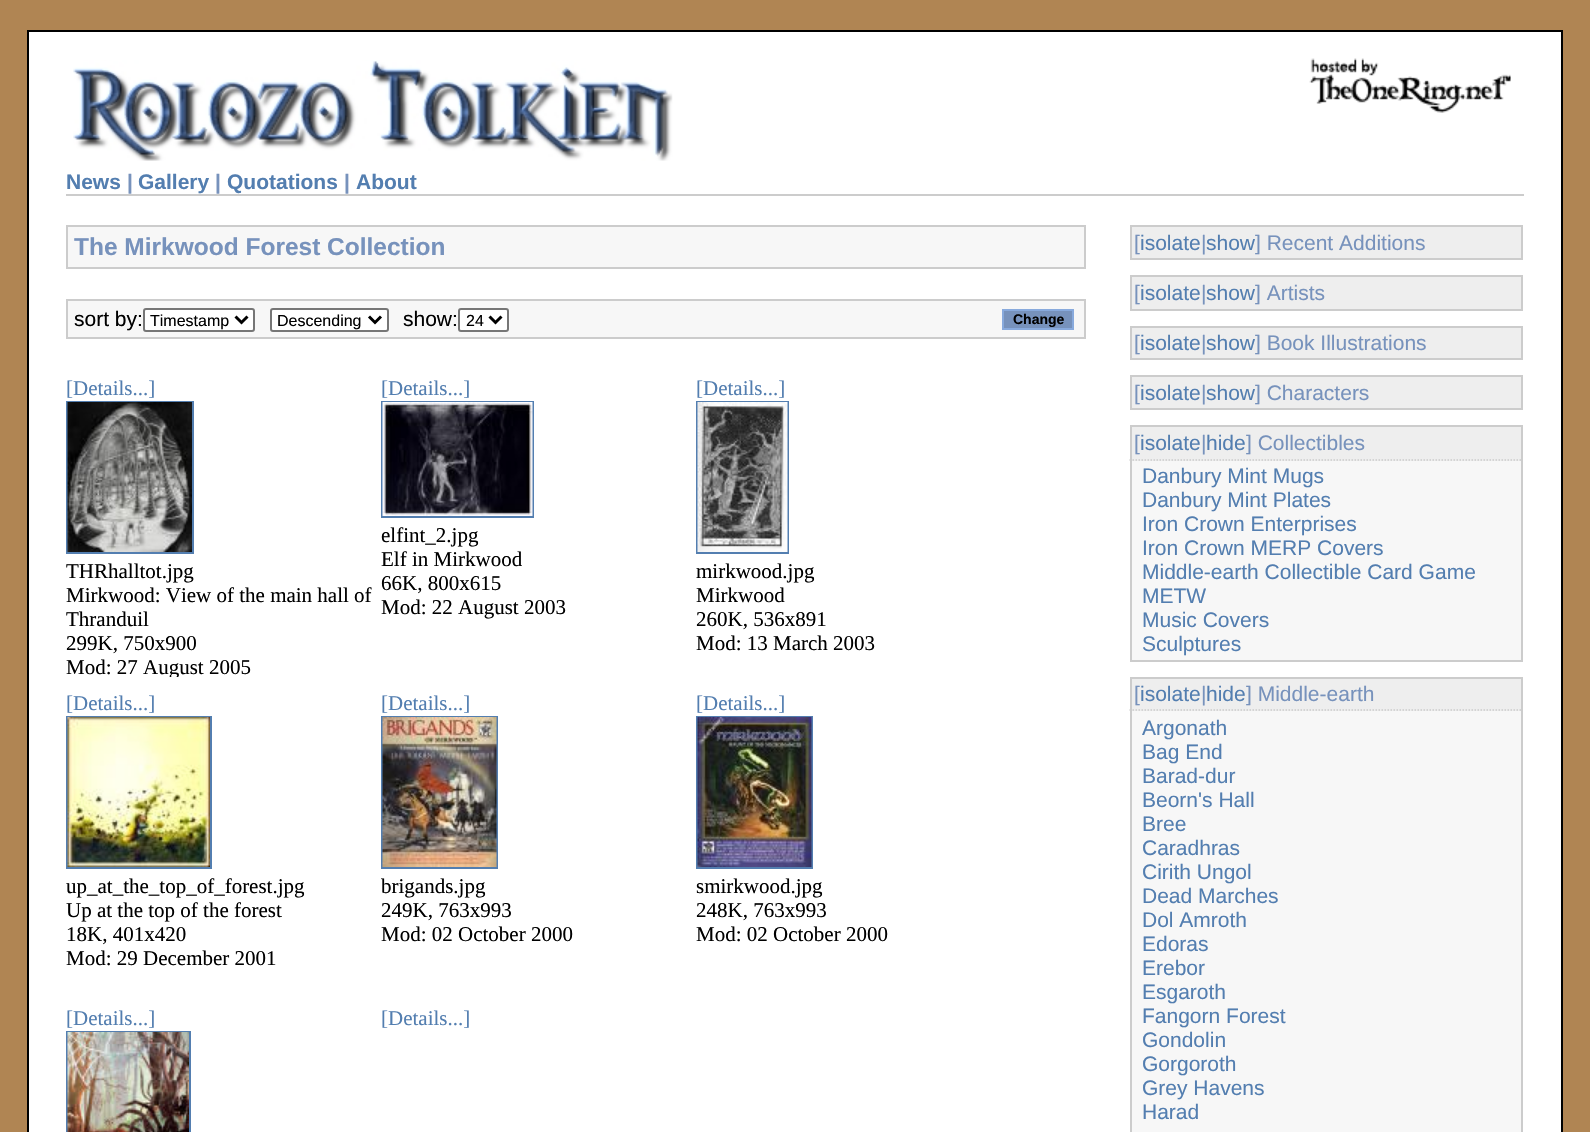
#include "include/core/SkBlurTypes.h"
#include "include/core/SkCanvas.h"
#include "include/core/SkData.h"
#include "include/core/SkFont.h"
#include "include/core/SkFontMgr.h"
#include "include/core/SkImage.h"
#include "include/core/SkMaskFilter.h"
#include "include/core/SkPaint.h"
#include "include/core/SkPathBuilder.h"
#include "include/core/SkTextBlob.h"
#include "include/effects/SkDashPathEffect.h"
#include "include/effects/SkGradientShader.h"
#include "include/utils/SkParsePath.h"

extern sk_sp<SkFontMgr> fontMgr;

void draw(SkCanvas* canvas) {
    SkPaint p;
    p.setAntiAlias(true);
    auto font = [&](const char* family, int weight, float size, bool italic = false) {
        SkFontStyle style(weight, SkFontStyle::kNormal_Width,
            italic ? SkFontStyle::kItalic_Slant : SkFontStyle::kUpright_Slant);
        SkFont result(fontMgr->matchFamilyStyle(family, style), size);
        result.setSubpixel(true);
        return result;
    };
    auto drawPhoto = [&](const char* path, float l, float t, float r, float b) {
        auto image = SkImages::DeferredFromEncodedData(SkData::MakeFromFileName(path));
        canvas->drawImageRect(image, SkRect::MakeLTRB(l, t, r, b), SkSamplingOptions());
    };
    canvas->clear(0xFFB08553);
    p.setColor(0xFFFFFFFF);
    canvas->drawRect(SkRect::MakeLTRB(28, 31, 1562, 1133), p);
    p.setStyle(SkPaint::kStroke_Style);
    p.setStrokeWidth(2);
    p.setColor(0xFF000000);
    canvas->drawRect(SkRect::MakeLTRB(28, 31, 1562, 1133), p);
    drawPhoto("media/1.png", 73, 60, 673, 161);
    drawPhoto("media/2.png", 1309, 58, 1511, 113);
    p.setStyle(SkPaint::kFill_Style);
    p.setColor(0xFFCCCCCC);
    canvas->drawRect(SkRect::MakeLTRB(66, 194, 1524, 196), p);
    auto font1 = font("Liberation Sans", 700, 21);
    p.setColor(0xFF537EB0);
    canvas->drawString("News", 66, 189, font1, p);
    p.setColor(0xFF7792BC);
    canvas->drawString("|", 127, 189, font1, p);
    p.setColor(0xFF537EB0);
    canvas->drawString("Gallery", 138, 189, font1, p);
    p.setColor(0xFF7792BC);
    canvas->drawString("|", 215, 189, font1, p);
    p.setColor(0xFF537EB0);
    canvas->drawString("Quotations", 227, 189, font1, p);
    p.setColor(0xFF7792BC);
    canvas->drawString("|", 344, 189, font1, p);
    p.setColor(0xFF537EB0);
    canvas->drawString("About", 356, 189, font1, p);
    p.setColor(0xFFF7F7F7);
    canvas->drawRect(SkRect::MakeLTRB(67, 226, 1085, 268), p);
    p.setStyle(SkPaint::kStroke_Style);
    p.setColor(0xFFCCCCCC);
    canvas->drawRect(SkRect::MakeLTRB(67, 226, 1085, 268), p);
    auto font2 = font("Liberation Sans", 700, 24.5f);
    p.setStyle(SkPaint::kFill_Style);
    p.setColor(0xFF7792BC);
    canvas->drawString("The Mirkwood Forest", 74, 255, font2, p);
    canvas->drawString("Collection", 327, 255, font2, p);
    p.setColor(0xFFF7F7F7);
    canvas->drawRect(SkRect::MakeLTRB(67, 300, 1085, 338), p);
    p.setStyle(SkPaint::kStroke_Style);
    p.setColor(0xFFCCCCCC);
    canvas->drawRect(SkRect::MakeLTRB(67, 300, 1085, 338), p);
    auto font3 = font("Liberation Sans", 400, 21);
    p.setStyle(SkPaint::kFill_Style);
    p.setColor(0xFF000000);
    canvas->drawString("sort by:", 74, 326, font3, p);
    p.setColor(0xFFFFFFFF);
    canvas->drawRoundRect(SkRect::MakeLTRB(144, 309, 254, 331), 2, 2, p);
    p.setStyle(SkPaint::kStroke_Style);
    p.setColor(0xFF767676);
    canvas->drawRoundRect(SkRect::MakeLTRB(144, 309, 254, 331), 2, 2, p);
    p.setStrokeWidth(3);
    p.setColor(0xFF000000);
    canvas->drawPath(SkPathBuilder().moveTo(235.5f, 316.5f).lineTo(241.5f, 322.5f).lineTo(247.5f, 316.5f).detach(), p);
    auto font4 = font("Liberation Sans", 400, 16);
    p.setStyle(SkPaint::kFill_Style);
    canvas->drawString("Timestamp", 150, 326, font4, p);
    p.setColor(0xFFFFFFFF);
    canvas->drawRoundRect(SkRect::MakeLTRB(271, 309, 388, 331), 2, 2, p);
    p.setStyle(SkPaint::kStroke_Style);
    p.setStrokeWidth(2);
    p.setColor(0xFF767676);
    canvas->drawRoundRect(SkRect::MakeLTRB(271, 309, 388, 331), 2, 2, p);
    p.setStrokeWidth(3);
    p.setColor(0xFF000000);
    canvas->drawPath(SkPathBuilder().moveTo(369, 316.5f).lineTo(375, 322.5f).lineTo(381, 316.5f).detach(), p);
    p.setStyle(SkPaint::kFill_Style);
    canvas->drawString("Descending", 277, 326, font4, p);
    canvas->drawString("show:", 403, 326, font3, p);
    p.setColor(0xFFFFFFFF);
    canvas->drawRoundRect(SkRect::MakeLTRB(459, 309, 508, 331), 2, 2, p);
    p.setStyle(SkPaint::kStroke_Style);
    p.setStrokeWidth(2);
    p.setColor(0xFF767676);
    canvas->drawRoundRect(SkRect::MakeLTRB(459, 309, 508, 331), 2, 2, p);
    p.setStrokeWidth(3);
    p.setColor(0xFF000000);
    canvas->drawPath(SkPathBuilder().moveTo(489.5f, 316.5f).lineTo(495.5f, 322.5f).lineTo(501.5f, 316.5f).detach(), p);
    p.setStyle(SkPaint::kFill_Style);
    canvas->drawString("24", 466, 326, font4, p);
    p.setColor(0xFF7792BC);
    canvas->drawRect(SkRect::MakeLTRB(1003, 310, 1073, 329), p);
    p.setStyle(SkPaint::kStroke_Style);
    p.setStrokeWidth(2);
    p.setColor(0xFF88AADD);
    canvas->drawRect(SkRect::MakeLTRB(1003, 310, 1073, 329), p);
    auto font5 = font("Liberation Sans", 700, 14);
    p.setStyle(SkPaint::kFill_Style);
    p.setColor(0xFF000000);
    canvas->drawString("Change", 1013, 324, font5, p);
    auto font6 = font("Liberation Serif", 400, 21);
    p.setColor(0xFF537EB0);
    canvas->drawString("[Details...]", 66, 395, font6, p);
    p.setStyle(SkPaint::kStroke_Style);
    canvas->drawRect(SkRect::MakeLTRB(67, 402, 193, 553), p);
    drawPhoto("media/3.png", 67, 402, 192, 552);
    p.setStyle(SkPaint::kFill_Style);
    p.setColor(0xFF000000);
    {
        const struct { const char* s; float x, y; } items[] = {
            {"THRhalltot.jpg", 66, 578},
            {"Mirkwood: View of the main hall of", 66, 602},
            {"Thranduil", 66, 626},
            {"299K, 750x900", 66, 650},
        };
        for (auto [s, x, y] : items) {
            canvas->drawString(s, x, y, font6, p);
        }
    }
    canvas->save();
    canvas->clipRect(SkRect::MakeLTRB(66, 377, 381, 677));
    canvas->drawString("Mod: 27 August 2005", 66, 674, font6, p);
    canvas->restore();
    p.setColor(0xFF537EB0);
    canvas->drawString("[Details...]", 381, 395, font6, p);
    p.setStyle(SkPaint::kStroke_Style);
    canvas->drawRect(SkRect::MakeLTRB(382, 402, 533, 517), p);
    drawPhoto("media/4.png", 382, 402, 533, 516);
    p.setStyle(SkPaint::kFill_Style);
    p.setColor(0xFF000000);
    {
        const struct { const char* s; float x, y; } items[] = {
            {"elfint_2.jpg", 381, 542},
            {"Elf in Mirkwood", 381, 566},
            {"66K, 800x615", 381, 590},
            {"Mod: 22 August 2003", 381, 614},
        };
        for (auto [s, x, y] : items) {
            canvas->drawString(s, x, y, font6, p);
        }
    }
    p.setColor(0xFF537EB0);
    canvas->drawString("[Details...]", 696, 395, font6, p);
    p.setStyle(SkPaint::kStroke_Style);
    canvas->drawRect(SkRect::MakeLTRB(697, 402, 788, 553), p);
    drawPhoto("media/5.png", 697, 402, 788, 552);
    p.setStyle(SkPaint::kFill_Style);
    p.setColor(0xFF000000);
    {
        const struct { const char* s; float x, y; } items[] = {
            {"mirkwood.jpg", 696, 578},
            {"Mirkwood", 696, 602},
            {"260K, 536x891", 696, 626},
            {"Mod: 13 March 2003", 696, 650},
        };
        for (auto [s, x, y] : items) {
            canvas->drawString(s, x, y, font6, p);
        }
    }
    p.setColor(0xFF537EB0);
    canvas->drawString("[Details...]", 66, 710, font6, p);
    p.setStyle(SkPaint::kStroke_Style);
    canvas->drawRect(SkRect::MakeLTRB(67, 717, 211, 868), p);
    drawPhoto("media/6.png", 67, 717, 210, 867);
    p.setStyle(SkPaint::kFill_Style);
    p.setColor(0xFF000000);
    {
        const struct { const char* s; float x, y; } items[] = {
            {"up_at_the_top_of_forest.jpg", 66, 893},
            {"Up at the top of the forest", 66, 917},
            {"18K, 401x420", 66, 941},
            {"Mod: 29 December 2001", 66, 965},
        };
        for (auto [s, x, y] : items) {
            canvas->drawString(s, x, y, font6, p);
        }
    }
    p.setColor(0xFF537EB0);
    canvas->drawString("[Details...]", 381, 710, font6, p);
    p.setStyle(SkPaint::kStroke_Style);
    canvas->drawRect(SkRect::MakeLTRB(382, 717, 497, 868), p);
    drawPhoto("media/7.png", 382, 717, 497, 867);
    p.setStyle(SkPaint::kFill_Style);
    p.setColor(0xFF000000);
    {
        const struct { const char* s; float x, y; } items[] = {
            {"brigands.jpg", 381, 893},
            {"249K, 763x993", 381, 917},
            {"Mod: 02 October 2000", 381, 941},
        };
        for (auto [s, x, y] : items) {
            canvas->drawString(s, x, y, font6, p);
        }
    }
    p.setColor(0xFF537EB0);
    canvas->drawString("[Details...]", 696, 710, font6, p);
    p.setStyle(SkPaint::kStroke_Style);
    canvas->drawRect(SkRect::MakeLTRB(697, 717, 812, 868), p);
    drawPhoto("media/8.png", 697, 717, 812, 867);
    p.setStyle(SkPaint::kFill_Style);
    p.setColor(0xFF000000);
    {
        const struct { const char* s; float x, y; } items[] = {
            {"smirkwood.jpg", 696, 893},
            {"248K, 763x993", 696, 917},
            {"Mod: 02 October 2000", 696, 941},
        };
        for (auto [s, x, y] : items) {
            canvas->drawString(s, x, y, font6, p);
        }
    }
    p.setColor(0xFF537EB0);
    canvas->drawString("[Details...]", 66, 1025, font6, p);
    p.setStyle(SkPaint::kStroke_Style);
    canvas->drawRect(SkRect::MakeLTRB(67, 1032, 190, 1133), p);
    drawPhoto("media/9.png", 67, 1032, 189, 1132);
    p.setStyle(SkPaint::kFill_Style);
    canvas->drawString("[Details...]", 381, 1025, font6, p);
    p.setColor(0xFFEEEEEE);
    canvas->drawRect(SkRect::MakeLTRB(1131, 226, 1522, 259), p);
    p.setStyle(SkPaint::kStroke_Style);
    p.setColor(0xFFCCCCCC);
    canvas->drawRect(SkRect::MakeLTRB(1131, 226, 1522, 259), p);
    p.setStyle(SkPaint::kFill_Style);
    p.setColor(0xFF7792BC);
    canvas->drawString("[", 1134, 250, font3, p);
    p.setColor(0xFF537EB0);
    canvas->drawString("isolate", 1140, 250, font3, p);
    p.setColor(0xFF7792BC);
    canvas->drawString("|", 1201, 250, font3, p);
    p.setColor(0xFF537EB0);
    canvas->drawString("show", 1206, 250, font3, p);
    p.setColor(0xFF7792BC);
    canvas->drawString("] Recent Additions", 1255, 250, font3, p);
    p.setColor(0xFFEEEEEE);
    canvas->drawRect(SkRect::MakeLTRB(1131, 276, 1522, 310), p);
    p.setStyle(SkPaint::kStroke_Style);
    p.setColor(0xFFCCCCCC);
    canvas->drawRect(SkRect::MakeLTRB(1131, 276, 1522, 310), p);
    p.setStyle(SkPaint::kFill_Style);
    p.setColor(0xFF7792BC);
    canvas->drawString("[", 1134, 300, font3, p);
    p.setColor(0xFF537EB0);
    canvas->drawString("isolate", 1140, 300, font3, p);
    p.setColor(0xFF7792BC);
    canvas->drawString("|", 1201, 300, font3, p);
    p.setColor(0xFF537EB0);
    canvas->drawString("show", 1206, 300, font3, p);
    p.setColor(0xFF7792BC);
    canvas->drawString("] Artists", 1255, 300, font3, p);
    p.setColor(0xFFEEEEEE);
    canvas->drawRect(SkRect::MakeLTRB(1131, 327, 1522, 359), p);
    p.setStyle(SkPaint::kStroke_Style);
    p.setColor(0xFFCCCCCC);
    canvas->drawRect(SkRect::MakeLTRB(1131, 327, 1522, 359), p);
    p.setStyle(SkPaint::kFill_Style);
    p.setColor(0xFF7792BC);
    canvas->drawString("[", 1134, 350, font3, p);
    p.setColor(0xFF537EB0);
    canvas->drawString("isolate", 1140, 350, font3, p);
    p.setColor(0xFF7792BC);
    canvas->drawString("|", 1201, 350, font3, p);
    p.setColor(0xFF537EB0);
    canvas->drawString("show", 1206, 350, font3, p);
    p.setColor(0xFF7792BC);
    canvas->drawString("] Book Illustrations", 1255, 350, font3, p);
    p.setColor(0xFFEEEEEE);
    canvas->drawRect(SkRect::MakeLTRB(1131, 376, 1522, 409), p);
    p.setStyle(SkPaint::kStroke_Style);
    p.setColor(0xFFCCCCCC);
    canvas->drawRect(SkRect::MakeLTRB(1131, 376, 1522, 409), p);
    p.setStyle(SkPaint::kFill_Style);
    p.setColor(0xFF7792BC);
    canvas->drawString("[", 1134, 400, font3, p);
    p.setColor(0xFF537EB0);
    canvas->drawString("isolate", 1140, 400, font3, p);
    p.setColor(0xFF7792BC);
    canvas->drawString("|", 1201, 400, font3, p);
    p.setColor(0xFF537EB0);
    canvas->drawString("show", 1206, 400, font3, p);
    p.setColor(0xFF7792BC);
    canvas->drawString("] Characters", 1255, 400, font3, p);
    {
        const struct { float l, t, r, b; SkColor color; } items[] = {
            {1132, 427, 1521, 461, 0xFFEEEEEE},
            {1130, 425, 1523, 427, 0xFFCCCCCC},
            {1521, 425, 1523, 662, 0xFFCCCCCC},
        };
        for (auto [l, t, r, b, color] : items) {
            p.setColor(color);
            canvas->drawRect(SkRect::MakeLTRB(l, t, r, b), p);
        }
    }
    p.setStyle(SkPaint::kStroke_Style);
    p.setStrokeWidth(1.5f);
    p.setPathEffect(SkDashPathEffect::Make({{1.5f, 1.5f}}, 0));
    canvas->drawPath(SkPathBuilder().moveTo(1129.5f, 460).lineTo(1522.5f, 460).detach(), p);
    p.setPathEffect(nullptr);
    p.setStyle(SkPaint::kFill_Style);
    canvas->drawRect(SkRect::MakeLTRB(1130, 425, 1132, 461), p);
    p.setColor(0xFF7792BC);
    canvas->drawString("[", 1134, 450, font3, p);
    p.setColor(0xFF537EB0);
    canvas->drawString("isolate", 1140, 450, font3, p);
    p.setColor(0xFF7792BC);
    canvas->drawString("|", 1201, 450, font3, p);
    p.setColor(0xFF537EB0);
    canvas->drawString("hide", 1206, 450, font3, p);
    p.setColor(0xFF7792BC);
    canvas->drawString("] Collectibles", 1246, 450, font3, p);
    {
        const struct { float l, t, r, b; SkColor color; } items[] = {
            {1132, 461, 1521, 660, 0xFFF7F7F7},
            {1130, 660, 1523, 662, 0xFFCCCCCC},
            {1130, 461, 1132, 662, 0xFFCCCCCC},
        };
        for (auto [l, t, r, b, color] : items) {
            p.setColor(color);
            canvas->drawRect(SkRect::MakeLTRB(l, t, r, b), p);
        }
    }
    p.setColor(0xFF537EB0);
    {
        const struct { const char* s; float x, y; } items[] = {
            {"Danbury Mint Mugs", 1142, 483},
            {"Danbury Mint Plates", 1142, 507},
            {"Iron Crown Enterprises", 1142, 531},
            {"Iron Crown MERP Covers", 1142, 555},
            {"Middle-earth Collectible Card Game", 1142, 579},
            {"METW", 1142, 603},
            {"Music Covers", 1142, 627},
            {"Sculptures", 1142, 651},
        };
        for (auto [s, x, y] : items) {
            canvas->drawString(s, x, y, font3, p);
        }
    }
    {
        const struct { float l, t, r, b; SkColor color; } items[] = {
            {1132, 679, 1521, 711, 0xFFEEEEEE},
            {1130, 677, 1523, 679, 0xFFCCCCCC},
            {1521, 677, 1523, 1132, 0xFFCCCCCC},
        };
        for (auto [l, t, r, b, color] : items) {
            p.setColor(color);
            canvas->drawRect(SkRect::MakeLTRB(l, t, r, b), p);
        }
    }
    p.setStyle(SkPaint::kStroke_Style);
    p.setPathEffect(SkDashPathEffect::Make({{1.5f, 1.5f}}, 0));
    canvas->drawPath(SkPathBuilder().moveTo(1129.5f, 710).lineTo(1522.5f, 710).detach(), p);
    p.setPathEffect(nullptr);
    p.setStyle(SkPaint::kFill_Style);
    canvas->drawRect(SkRect::MakeLTRB(1130, 677, 1132, 1132), p);
    p.setColor(0xFF7792BC);
    canvas->drawString("[", 1134, 701, font3, p);
    p.setColor(0xFF537EB0);
    canvas->drawString("isolate", 1140, 701, font3, p);
    p.setColor(0xFF7792BC);
    canvas->drawString("|", 1201, 701, font3, p);
    p.setColor(0xFF537EB0);
    canvas->drawString("hide", 1206, 701, font3, p);
    p.setColor(0xFF7792BC);
    canvas->drawString("] Middle-earth", 1246, 701, font3, p);
    p.setColor(0xFFF7F7F7);
    canvas->drawRect(SkRect::MakeLTRB(1132, 711, 1521, 1132), p);
    p.setColor(0xFF537EB0);
    {
        const struct { const char* s; float x, y; } items[] = {
            {"Argonath", 1142, 735},
            {"Bag End", 1142, 759},
            {"Barad-dur", 1142, 783},
            {"Beorn's Hall", 1142, 807},
            {"Bree", 1142, 831},
            {"Caradhras", 1142, 855},
            {"Cirith Ungol", 1142, 879},
            {"Dead Marches", 1142, 903},
            {"Dol Amroth", 1142, 927},
            {"Edoras", 1142, 951},
            {"Erebor", 1142, 975},
            {"Esgaroth", 1142, 999},
            {"Fangorn Forest", 1142, 1023},
            {"Gondolin", 1142, 1047},
            {"Gorgoroth", 1142, 1071},
            {"Grey Havens", 1142, 1095},
            {"Harad", 1142, 1119},
        };
        for (auto [s, x, y] : items) {
            canvas->drawString(s, x, y, font3, p);
        }
    }
}
